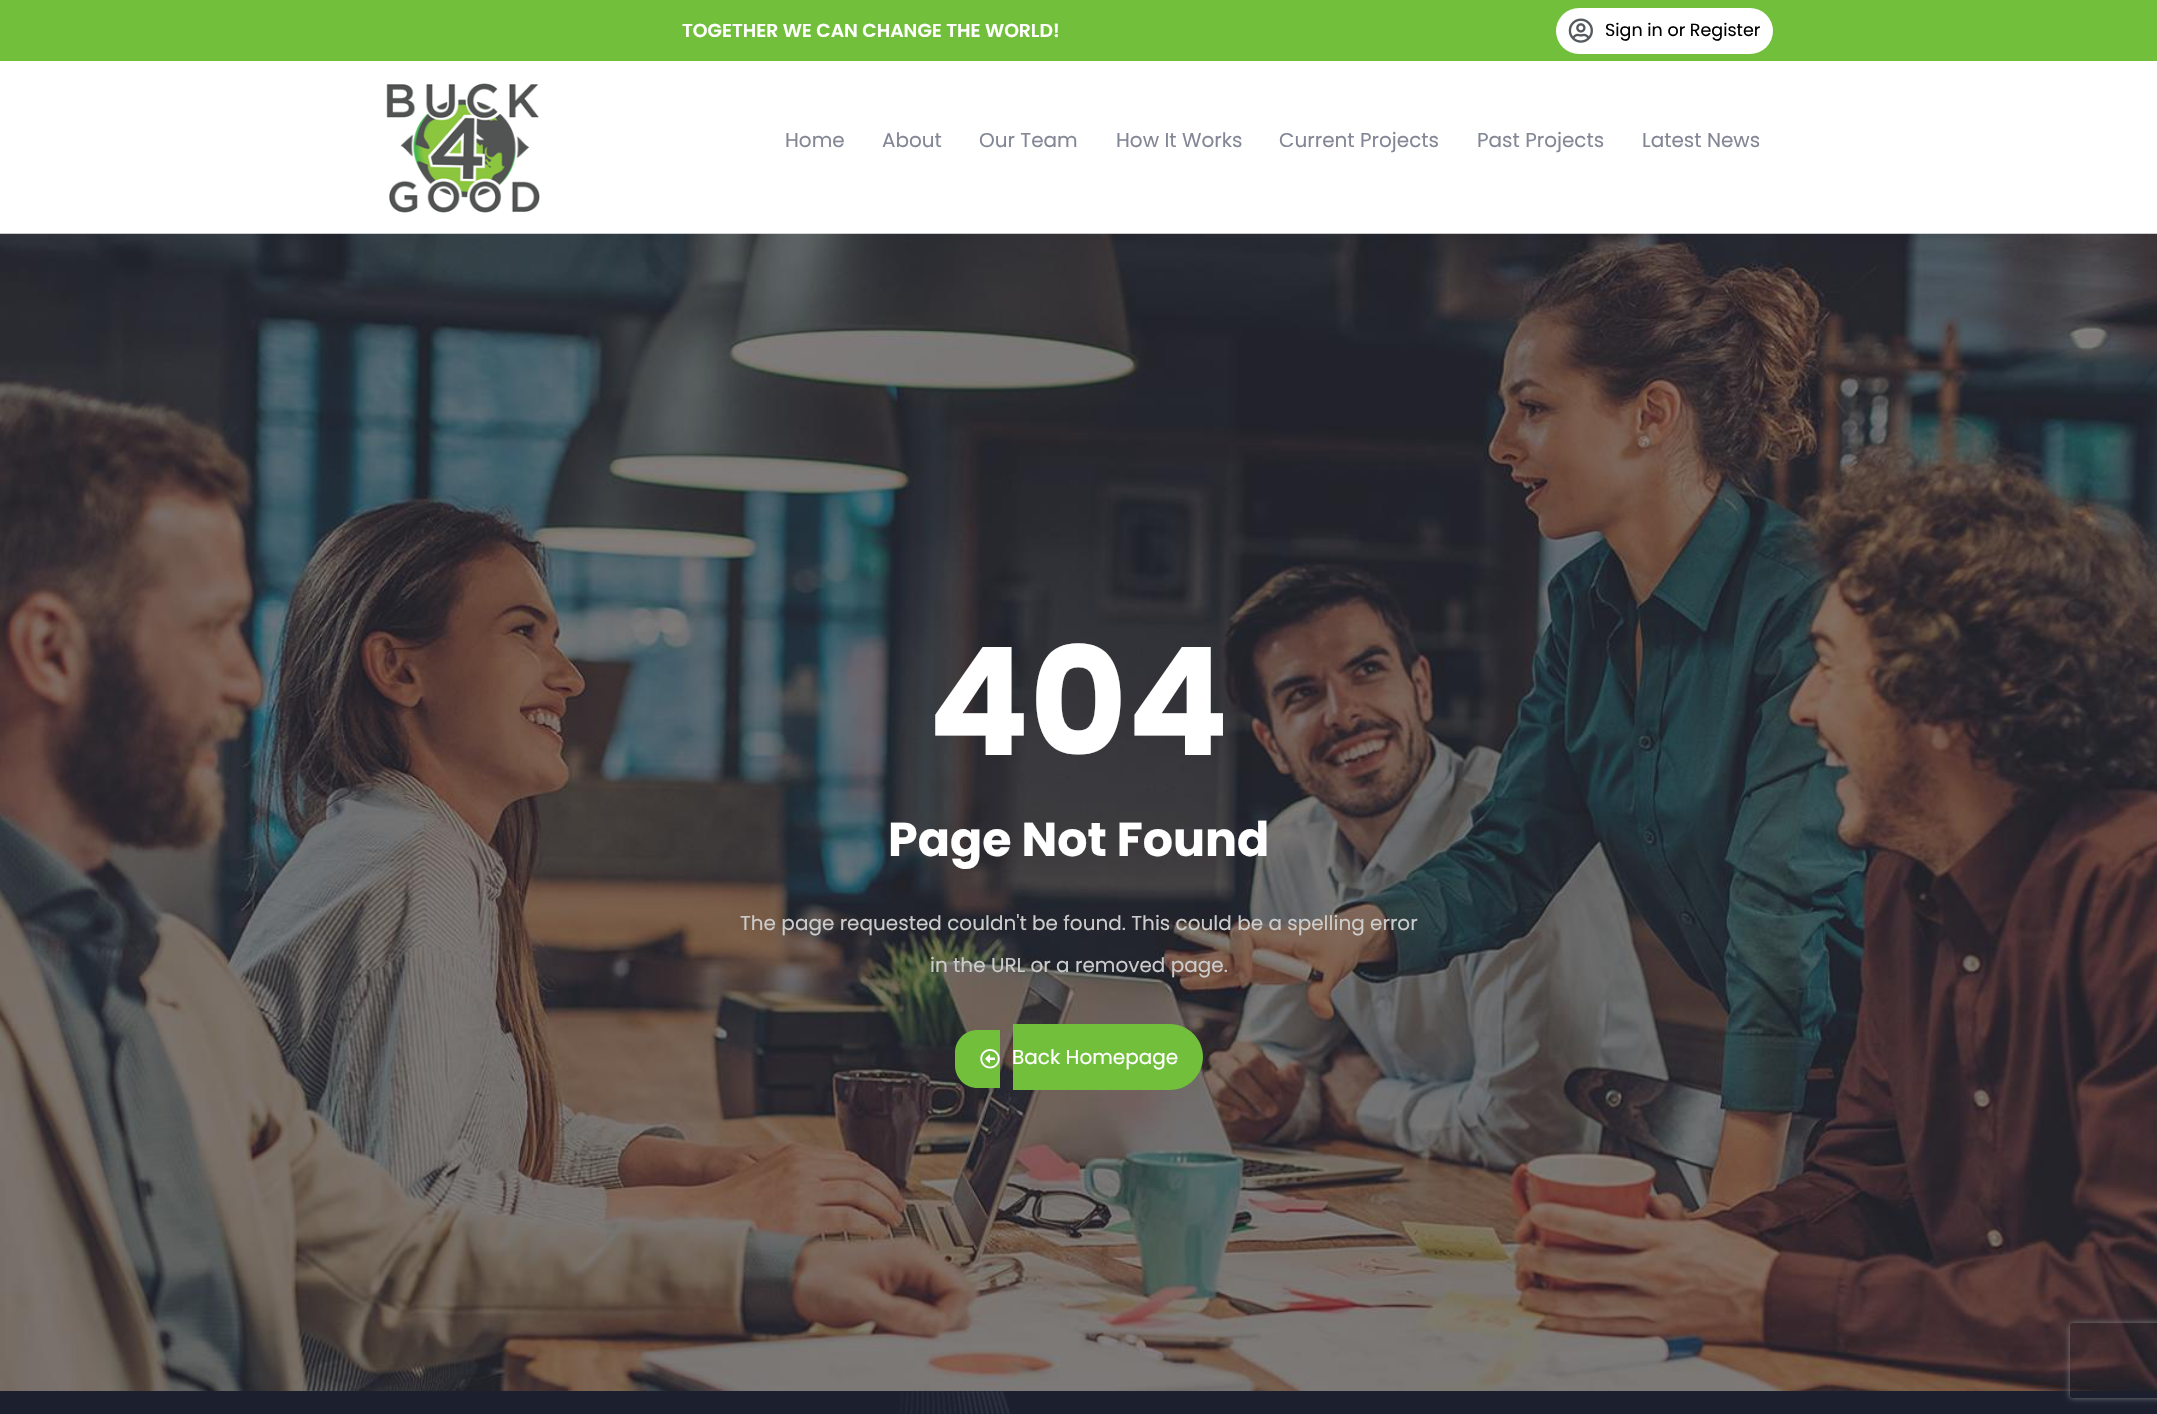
#include "include/core/SkBlurTypes.h"
#include "include/core/SkCanvas.h"
#include "include/core/SkData.h"
#include "include/core/SkFont.h"
#include "include/core/SkFontMgr.h"
#include "include/core/SkImage.h"
#include "include/core/SkMaskFilter.h"
#include "include/core/SkPaint.h"
#include "include/core/SkPathBuilder.h"
#include "include/core/SkTextBlob.h"
#include "include/effects/SkDashPathEffect.h"
#include "include/effects/SkGradientShader.h"
#include "include/utils/SkParsePath.h"

extern sk_sp<SkFontMgr> fontMgr;

void draw(SkCanvas* canvas) {
    SkPaint p;
    p.setAntiAlias(true);
    auto font = [&](const char* family, int weight, float size, bool italic = false) {
        SkFontStyle style(weight, SkFontStyle::kNormal_Width,
            italic ? SkFontStyle::kItalic_Slant : SkFontStyle::kUpright_Slant);
        SkFont result(fontMgr->matchFamilyStyle(family, style), size);
        result.setSubpixel(true);
        return result;
    };
    auto drawPhoto = [&](const char* path, float l, float t, float r, float b) {
        auto image = SkImages::DeferredFromEncodedData(SkData::MakeFromFileName(path));
        canvas->drawImageRect(image, SkRect::MakeLTRB(l, t, r, b), SkSamplingOptions());
    };
    canvas->clear(0xFFFFFFFF);
    p.setColor(0xFF72BF3B);
    canvas->drawRect(SkRect::MakeLTRB(0, 0, 2157, 61), p);
    auto font1 = font("Poppins", 600, 18.75f);
    p.setColor(0xFFFFFFFF);
    canvas->drawString("TOGETHER WE CAN CHANGE THE WORLD!", 682, 37, font1, p);
    canvas->drawRoundRect(SkRect::MakeLTRB(1556, 8, 1773, 54), 23, 23, p);
    drawPhoto("media/1.png", 1568, 18, 1593, 43);
    auto font2 = font("Poppins", 400, 17.5f);
    p.setColor(0xFF000000);
    canvas->drawString("Sign in or Register", 1605, 36, font2, p);
    drawPhoto("media/2.png", 386, 83, 540, 213);
    auto font3 = font("Poppins", 400, 20);
    p.setColor(0xFF838694);
    {
        const struct { const char* s; float x, y; } items[] = {
            {"Home", 785, 147},
            {"About", 882, 147},
            {"Our Team", 979, 147},
            {"How It Works", 1116, 147},
            {"Current Projects", 1279, 147},
            {"Past Projects", 1477, 147},
            {"Latest News", 1642, 147},
        };
        for (auto [s, x, y] : items) {
            canvas->drawString(s, x, y, font3, p);
        }
    }
    drawPhoto("media/3.png", 0, 233, 2157, 1391);
    auto font4 = font("Poppins", 700, 150);
    p.setColor(0xFFFFFFFF);
    canvas->drawString("404", 928, 755, font4, p);
    auto font5 = font("Poppins", 700, 47.5f);
    canvas->drawString("Page Not Found", 888, 856, font5, p);
    p.setColor(0xFFCCCCCC);
    canvas->drawString("The page requested couldn't be found. This could be a spelling error", 740, 930, font3, p);
    canvas->drawString("in the URL or a removed page.", 930, 972, font3, p);
    p.setColor(0xFF72BF3B);
    canvas->drawPath(SkPathBuilder().moveTo(977.5f, 1030).lineTo(1000, 1030).lineTo(1000, 1088).lineTo(977.5f, 1088).cubicTo(965, 1088, 955, 1078, 955, 1065.5f).lineTo(955, 1052.5f).cubicTo(955, 1040, 965, 1030, 977.5f, 1030).close().detach(), p);
    canvas->drawPath(SkPathBuilder().moveTo(1013, 1024).lineTo(1170, 1024).cubicTo(1188, 1024, 1203, 1039, 1203, 1057).cubicTo(1203, 1075, 1188, 1090, 1170, 1090).lineTo(1013, 1090).close().detach(), p);
    drawPhoto("media/4.png", 980, 1049, 1000, 1069);
    p.setColor(0xFFFFFFFF);
    canvas->drawString("Back Homepage", 1012, 1064, font3, p);
    p.setColor(0xFF1B1F2E);
    canvas->drawRect(SkRect::MakeLTRB(0, 1391, 2157, 1414), p);
    canvas->save();
    canvas->clipPath(SkPathBuilder(SkPathFillType::kEvenOdd).moveTo(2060, 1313).lineTo(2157, 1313).lineTo(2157, 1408).lineTo(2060, 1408).close().moveTo(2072.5f, 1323).lineTo(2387.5f, 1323).cubicTo(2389, 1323, 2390, 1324, 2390, 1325.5f).lineTo(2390, 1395.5f).cubicTo(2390, 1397, 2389, 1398, 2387.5f, 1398).lineTo(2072.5f, 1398).cubicTo(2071, 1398, 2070, 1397, 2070, 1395.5f).lineTo(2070, 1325.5f).cubicTo(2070, 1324, 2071, 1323, 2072.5f, 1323).close().detach(), true);
    p.setColor(0xFF808080);
    p.setMaskFilter(SkMaskFilter::MakeBlur(kNormal_SkBlurStyle, 3));
    canvas->drawRoundRect(SkRect::MakeLTRB(2070, 1323, 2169, 1398), 2.5f, 2.5f, p);
    p.setMaskFilter(nullptr);
    canvas->restore();
    drawPhoto("media/5.png", 900, 1391, 1010, 1414);
}
